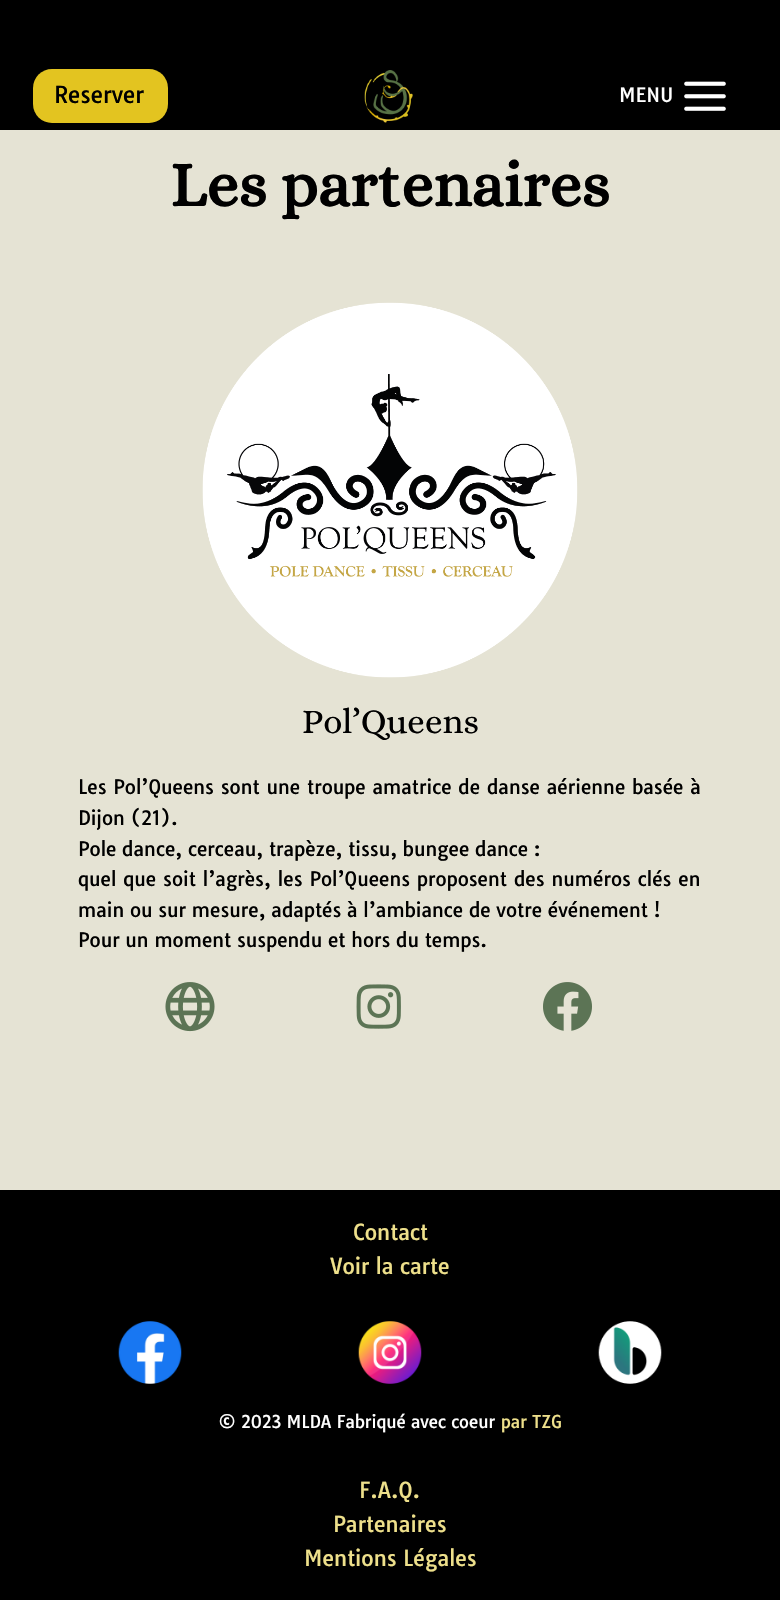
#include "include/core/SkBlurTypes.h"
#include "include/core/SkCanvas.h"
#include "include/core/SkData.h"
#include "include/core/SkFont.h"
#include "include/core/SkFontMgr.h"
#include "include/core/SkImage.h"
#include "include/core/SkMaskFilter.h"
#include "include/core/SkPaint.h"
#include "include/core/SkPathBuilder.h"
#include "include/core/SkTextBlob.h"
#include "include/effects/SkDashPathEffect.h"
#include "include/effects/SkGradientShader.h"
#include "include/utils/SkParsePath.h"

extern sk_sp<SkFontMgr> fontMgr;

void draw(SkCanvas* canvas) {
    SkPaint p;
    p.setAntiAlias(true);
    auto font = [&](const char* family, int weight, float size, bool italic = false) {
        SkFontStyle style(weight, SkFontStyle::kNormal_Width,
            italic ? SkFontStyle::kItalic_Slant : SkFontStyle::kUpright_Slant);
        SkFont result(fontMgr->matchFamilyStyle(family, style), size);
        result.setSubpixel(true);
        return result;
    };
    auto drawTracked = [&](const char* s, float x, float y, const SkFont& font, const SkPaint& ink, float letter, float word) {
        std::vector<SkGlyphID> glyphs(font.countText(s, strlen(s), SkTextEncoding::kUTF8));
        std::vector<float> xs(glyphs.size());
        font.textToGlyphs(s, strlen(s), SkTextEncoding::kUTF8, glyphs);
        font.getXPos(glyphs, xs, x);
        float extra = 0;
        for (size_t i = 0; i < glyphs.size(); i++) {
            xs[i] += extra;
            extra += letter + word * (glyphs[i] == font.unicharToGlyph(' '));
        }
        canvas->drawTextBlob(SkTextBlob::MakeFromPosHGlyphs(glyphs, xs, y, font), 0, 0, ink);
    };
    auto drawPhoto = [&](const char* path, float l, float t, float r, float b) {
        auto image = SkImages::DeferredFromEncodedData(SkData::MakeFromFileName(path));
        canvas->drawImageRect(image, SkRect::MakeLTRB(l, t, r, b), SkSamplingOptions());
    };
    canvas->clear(0xFFE5E3D4);
    p.setColor(0xFF000000);
    canvas->drawRect(SkRect::MakeLTRB(0, 0, 780, 130), p);
    p.setColor(0xFFE3C420);
    canvas->drawRoundRect(SkRect::MakeLTRB(33, 69, 168, 123), 19, 19, p);
    auto font1 = font("Tauri", 400, 22.5f);
    p.setColor(0xFF000000);
    canvas->drawString("Reserver", 54, 103, font1, p);
    drawPhoto("media/1.png", 364, 70, 413, 123);
    auto font2 = font("Tauri", 400, 19);
    p.setColor(0xFFFFFFFF);
    canvas->drawString("MENU", 619, 102, font2, p);
    drawPhoto("media/2.png", 684, 81, 726, 111);
    auto font3 = font("Alice", 700, 63.75f);
    p.setColor(0xFF000000);
    canvas->drawString("Les partenaires", 170, 206, font3, p);
    drawPhoto("media/3.png", 202, 302, 578, 678);
    auto font4 = font("Alice", 400, 35);
    canvas->drawString("Pol’Queens", 302, 733, font4, p);
    auto font5 = font("Tauri", 400, 19.1f);
    drawTracked("Les Pol’Queens sont une troupe amatrice de danse aérienne basée à", 78, 794, font5, p, 0, 1.1f);
    canvas->drawString("Dijon (21).", 78, 825, font5, p);
    canvas->drawString("Pole dance, cerceau, trapèze, tissu, bungee dance :", 78, 856, font5, p);
    drawTracked("quel que soit l’agrès, les Pol’Queens proposent des numéros clés en", 78, 886, font5, p, 0, 1.25f);
    canvas->drawString("main ou sur mesure, adaptés à l’ambiance de votre événement !", 78, 917, font5, p);
    canvas->drawString("Pour un moment suspendu et hors du temps.", 78, 947, font5, p);
    drawPhoto("media/4.png", 165, 982, 215, 1032);
    drawPhoto("media/5.png", 356, 984, 401, 1029);
    drawPhoto("media/6.png", 543, 982, 592, 1031);
    canvas->drawRect(SkRect::MakeLTRB(0, 1190, 780, 1600), p);
    auto font6 = font("Tauri", 400, 21.25f);
    p.setColor(0xFFEEE08B);
    canvas->drawString("Contact", 353, 1240, font6, p);
    canvas->drawString("Voir la carte", 330, 1274, font6, p);
    drawPhoto("media/7.png", 118, 1321, 182, 1384);
    drawPhoto("media/8.png", 358, 1321, 422, 1384);
    drawPhoto("media/9.png", 598, 1321, 662, 1384);
    auto font7 = font("Tauri", 400, 17);
    p.setColor(0xFFFFFFFF);
    canvas->drawString("© 2023 MLDA Fabriqué avec coeur", 218, 1428, font7, p);
    p.setColor(0xFFEEE08B);
    canvas->drawString("par TZG", 501, 1428, font7, p);
    {
        const struct { const char* s; float x, y; } items[] = {
            {"F.A.Q.", 359, 1498},
            {"Partenaires", 333, 1532},
            {"Mentions Légales", 304, 1566},
        };
        for (auto [s, x, y] : items) {
            canvas->drawString(s, x, y, font6, p);
        }
    }
}
